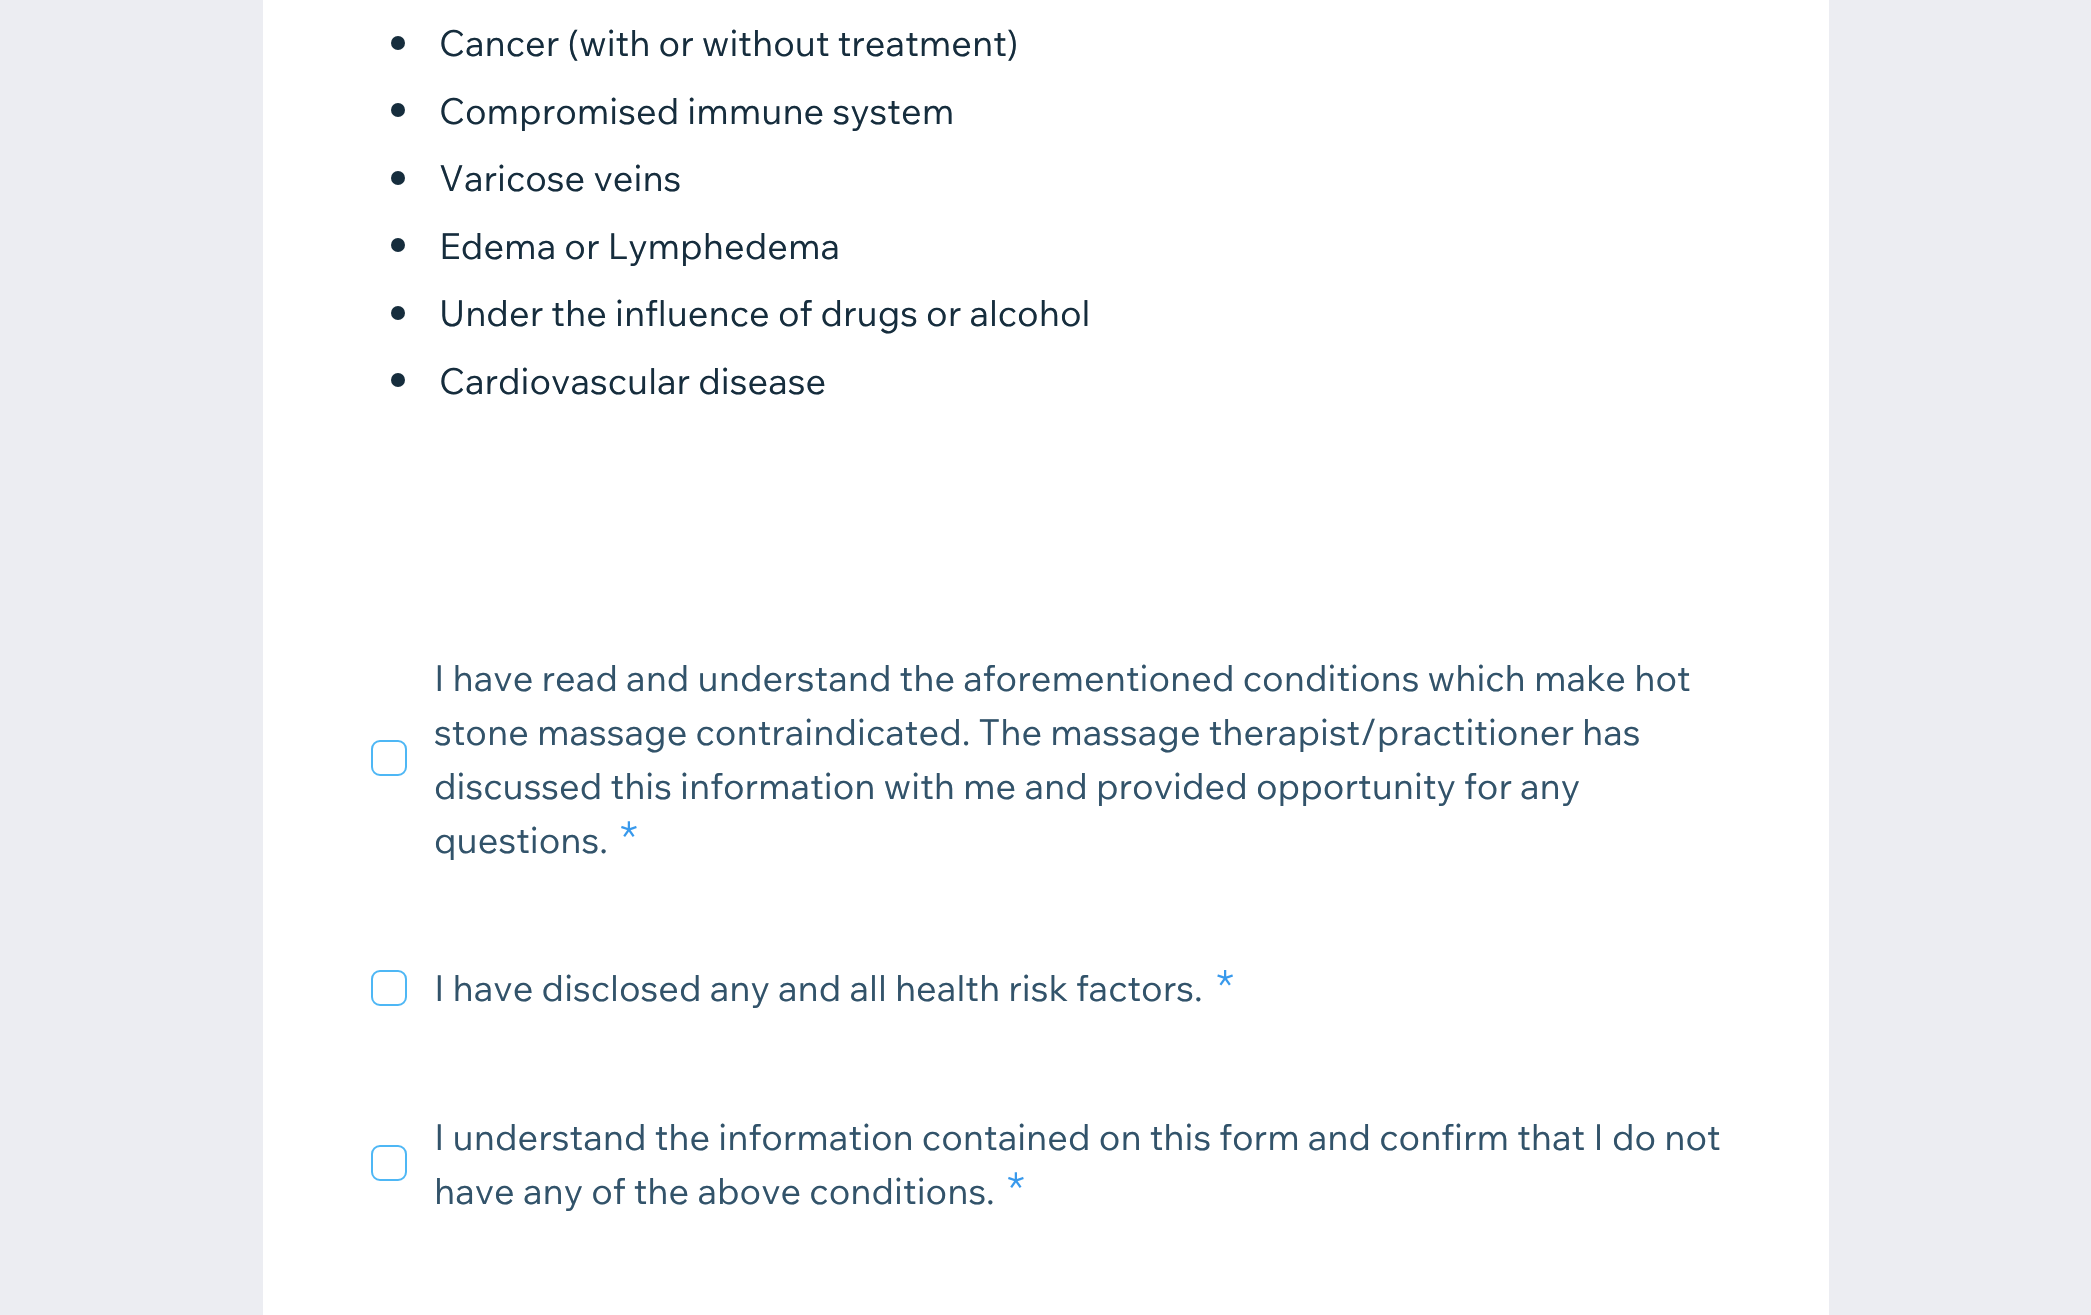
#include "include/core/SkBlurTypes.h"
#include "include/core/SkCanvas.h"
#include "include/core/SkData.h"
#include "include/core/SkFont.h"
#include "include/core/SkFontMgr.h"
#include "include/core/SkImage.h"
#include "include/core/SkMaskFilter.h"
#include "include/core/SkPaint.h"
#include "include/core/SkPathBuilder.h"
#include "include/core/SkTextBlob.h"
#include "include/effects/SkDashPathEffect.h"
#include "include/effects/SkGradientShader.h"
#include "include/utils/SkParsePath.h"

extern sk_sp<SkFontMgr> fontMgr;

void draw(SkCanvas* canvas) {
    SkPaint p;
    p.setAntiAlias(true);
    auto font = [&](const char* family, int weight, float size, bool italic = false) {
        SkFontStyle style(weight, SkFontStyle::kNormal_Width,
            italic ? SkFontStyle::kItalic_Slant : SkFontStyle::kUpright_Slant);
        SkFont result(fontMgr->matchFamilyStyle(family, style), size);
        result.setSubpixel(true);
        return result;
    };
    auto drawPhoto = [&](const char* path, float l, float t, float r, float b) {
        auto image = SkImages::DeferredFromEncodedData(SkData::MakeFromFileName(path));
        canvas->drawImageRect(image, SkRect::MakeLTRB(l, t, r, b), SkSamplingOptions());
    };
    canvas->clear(0xFFECEDF2);
    p.setColor(0xFFFFFFFF);
    canvas->drawRect(SkRect::MakeLTRB(263, 0, 1829, 1315), p);
    p.setColor(0xFF162D3D);
    canvas->drawCircle(398, 43, 7, p);
    auto font1 = font("Wix Madefor Text", 400, 36);
    canvas->drawString("Cancer (with or without treatment)", 439, 56, font1, p);
    canvas->drawCircle(398, 110, 7, p);
    canvas->drawString("Compromised immune system", 439, 124, font1, p);
    canvas->drawCircle(398, 178, 7, p);
    canvas->drawString("Varicose veins", 439, 191, font1, p);
    canvas->drawCircle(398, 245, 7, p);
    canvas->drawString("Edema or Lymphedema", 439, 259, font1, p);
    canvas->drawCircle(398, 313, 7, p);
    canvas->drawString("Under the influence of drugs or alcohol", 439, 326, font1, p);
    canvas->drawCircle(398, 380, 7, p);
    canvas->drawString("Cardiovascular disease", 439, 394, font1, p);
    p.setStyle(SkPaint::kStroke_Style);
    p.setStrokeWidth(2);
    p.setColor(0xFF4EB7F5);
    canvas->drawRoundRect(SkRect::MakeLTRB(372, 741, 406, 775), 8, 8, p);
    p.setStyle(SkPaint::kFill_Style);
    p.setColor(0xFF32536A);
    {
        const struct { const char* s; float x, y; } items[] = {
            {"I have read and understand the aforementioned conditions which make hot", 434, 691},
            {"stone massage contraindicated. The massage therapist/practitioner has", 434, 745},
            {"discussed this information with me and provided opportunity for any", 434, 799},
            {"questions.", 434, 853},
        };
        for (auto [s, x, y] : items) {
            canvas->drawString(s, x, y, font1, p);
        }
    }
    drawPhoto("media/1.png", 621, 821, 637, 837);
    p.setStyle(SkPaint::kStroke_Style);
    p.setColor(0xFF4EB7F5);
    canvas->drawRoundRect(SkRect::MakeLTRB(372, 971, 406, 1005), 8, 8, p);
    p.setStyle(SkPaint::kFill_Style);
    p.setColor(0xFF32536A);
    canvas->drawString("I have disclosed any and all health risk factors.", 434, 1001, font1, p);
    drawPhoto("media/2.png", 1217, 970, 1233, 986);
    p.setStyle(SkPaint::kStroke_Style);
    p.setColor(0xFF4EB7F5);
    canvas->drawRoundRect(SkRect::MakeLTRB(372, 1146, 406, 1180), 8, 8, p);
    p.setStyle(SkPaint::kFill_Style);
    p.setColor(0xFF32536A);
    canvas->drawString("I understand the information contained on this form and confirm that I do not", 434, 1150, font1, p);
    canvas->drawString("have any of the above conditions.", 434, 1204, font1, p);
    drawPhoto("media/1.png", 1008, 1172, 1024, 1188);
}
